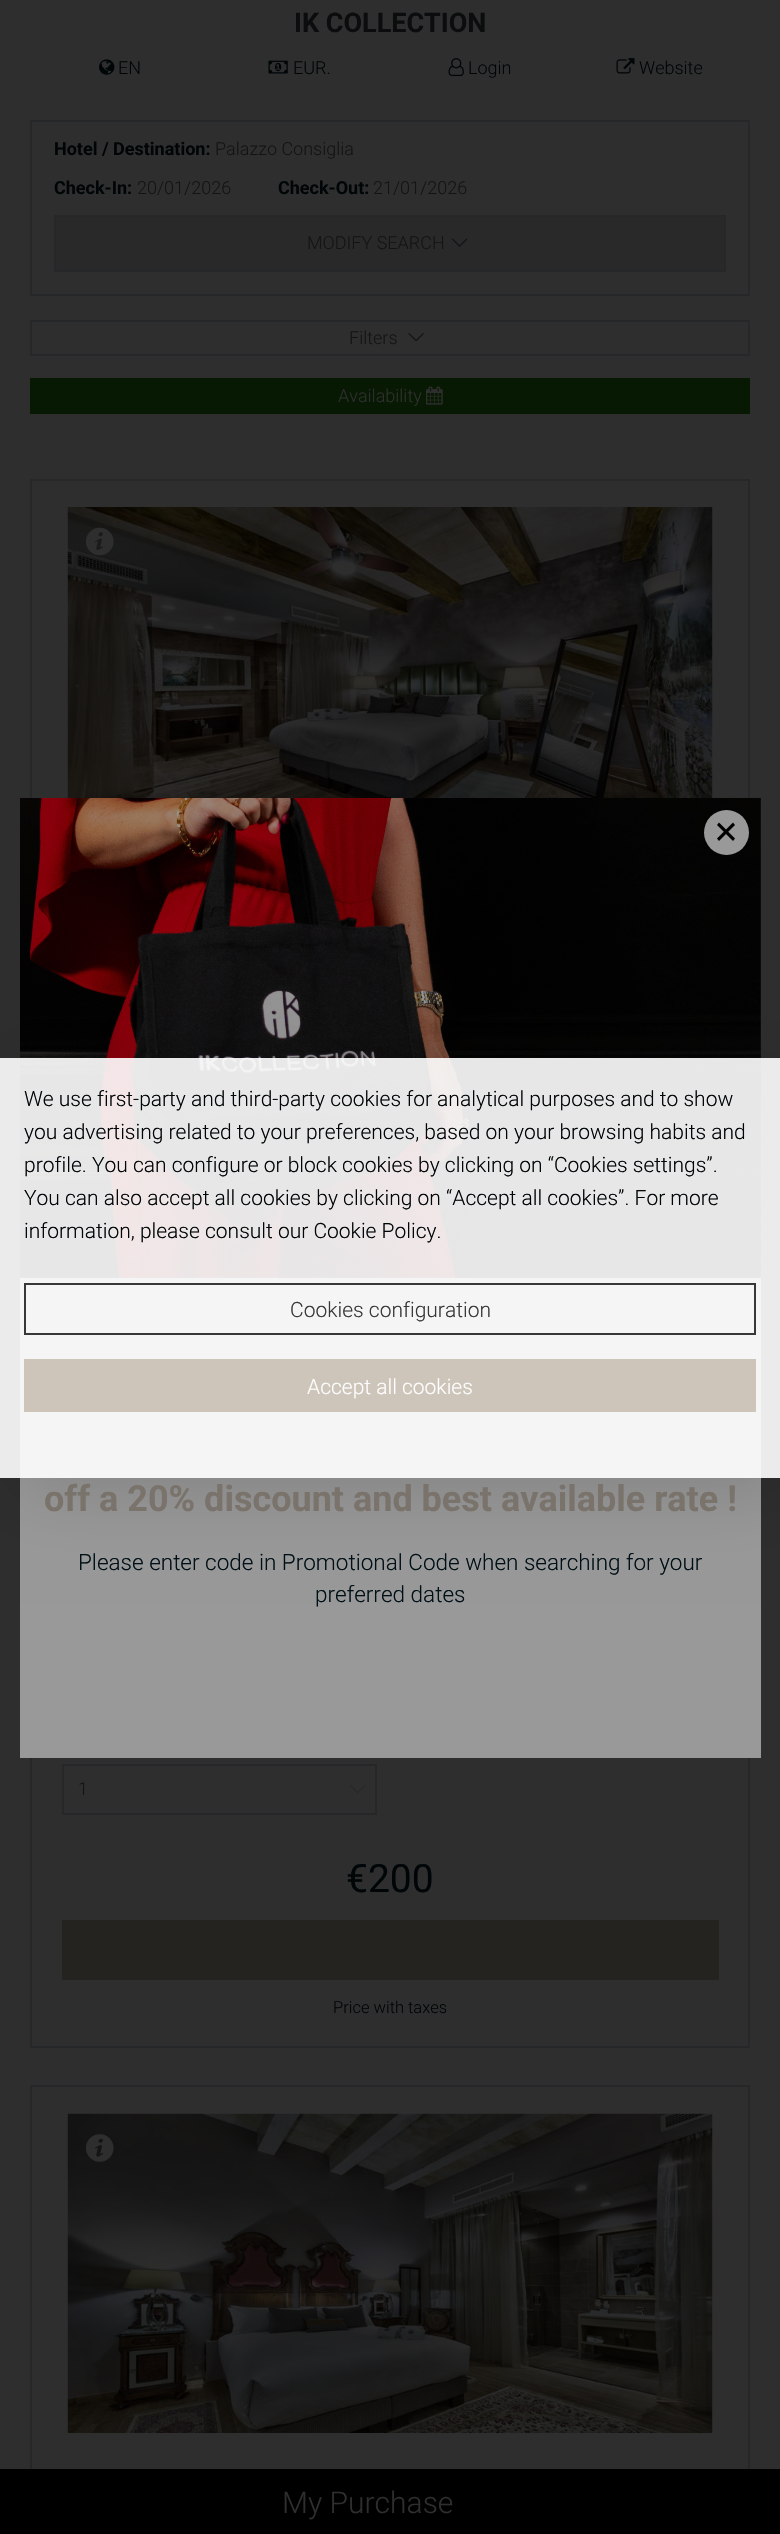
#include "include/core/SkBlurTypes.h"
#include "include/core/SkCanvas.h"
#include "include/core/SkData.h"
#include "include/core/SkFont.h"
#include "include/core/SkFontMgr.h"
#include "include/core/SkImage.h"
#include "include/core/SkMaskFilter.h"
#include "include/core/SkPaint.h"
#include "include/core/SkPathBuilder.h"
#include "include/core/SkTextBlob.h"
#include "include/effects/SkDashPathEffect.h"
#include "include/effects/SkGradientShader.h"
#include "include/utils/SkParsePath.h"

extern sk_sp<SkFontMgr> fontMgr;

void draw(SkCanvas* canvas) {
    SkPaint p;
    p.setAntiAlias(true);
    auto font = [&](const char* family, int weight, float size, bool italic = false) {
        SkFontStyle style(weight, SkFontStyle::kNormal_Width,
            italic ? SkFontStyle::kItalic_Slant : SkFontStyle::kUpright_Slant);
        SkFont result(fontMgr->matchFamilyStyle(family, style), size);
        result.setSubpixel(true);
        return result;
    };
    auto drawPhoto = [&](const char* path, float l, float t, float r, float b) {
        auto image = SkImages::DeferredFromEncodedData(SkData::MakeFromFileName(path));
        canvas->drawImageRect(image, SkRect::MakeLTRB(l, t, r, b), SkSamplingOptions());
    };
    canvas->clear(0xFF2E2E2E);
    auto font1 = font("Roboto", 700, 27);
    p.setColor(0xFF0B0C0D);
    canvas->drawString("IK COLLECTION", 294, 32, font1, p);
    drawPhoto("media/1.png", 99, 59, 115, 75);
    auto font2 = font("Roboto", 300, 18);
    p.setColor(0xFF000507);
    canvas->drawString("EN", 118, 74, font2, p);
    drawPhoto("media/2.png", 268, 60, 288, 74);
    canvas->drawString("EUR.", 293, 74, font2, p);
    drawPhoto("media/3.png", 448, 58, 464, 77);
    canvas->drawString("Login", 468, 74, font2, p);
    drawPhoto("media/4.png", 616, 58, 635, 74);
    canvas->drawString("Website", 639, 74, font2, p);
    p.setStyle(SkPaint::kStroke_Style);
    p.setStrokeWidth(2);
    p.setColor(0xFF262728);
    canvas->drawRect(SkRect::MakeLTRB(31, 121, 749, 295), p);
    auto font3 = font("Roboto", 700, 18);
    p.setStyle(SkPaint::kFill_Style);
    p.setColor(0xFF000507);
    canvas->drawString("Hotel / Destination:", 54, 155, font3, p);
    p.setColor(0xFF121313);
    canvas->drawString("Palazzo Consiglia", 215, 155, font2, p);
    p.setColor(0xFF000507);
    canvas->drawString("Check-In:", 54, 194, font3, p);
    p.setColor(0xFF121313);
    canvas->drawString("20/01/2026", 137, 194, font2, p);
    p.setColor(0xFF000507);
    canvas->drawString("Check-Out:", 278, 194, font3, p);
    p.setColor(0xFF121313);
    canvas->drawString("21/01/2026", 373, 194, font2, p);
    p.setColor(0xFF292929);
    canvas->drawRect(SkRect::MakeLTRB(55, 216, 725, 271), p);
    p.setStyle(SkPaint::kStroke_Style);
    p.setColor(0xFF262728);
    canvas->drawRect(SkRect::MakeLTRB(55, 216, 725, 271), p);
    p.setStyle(SkPaint::kFill_Style);
    p.setColor(0xFF121313);
    canvas->drawString("MODIFY SEARCH", 307, 249, font2, p);
    drawPhoto("media/5.png", 451, 238, 468, 247);
    p.setStyle(SkPaint::kStroke_Style);
    p.setColor(0xFF262728);
    canvas->drawRect(SkRect::MakeLTRB(31, 321, 749, 355), p);
    p.setStyle(SkPaint::kFill_Style);
    p.setColor(0xFF121313);
    canvas->drawString("Filters", 349, 344, font2, p);
    drawPhoto("media/6.png", 408, 333, 424, 342);
    p.setColor(0xFF071902);
    canvas->drawRect(SkRect::MakeLTRB(30, 378, 750, 414), p);
    p.setColor(0xFF2E2E2E);
    canvas->drawString("Availability", 338, 402, font2, p);
    drawPhoto("media/7.png", 426, 386, 443, 405);
    p.setStyle(SkPaint::kStroke_Style);
    p.setColor(0xFF262728);
    canvas->drawRect(SkRect::MakeLTRB(31, 480, 749, 2047), p);
    drawPhoto("media/8.png", 67, 507, 713, 798);
    drawPhoto("media/9.png", 86, 527, 114, 556);
    canvas->drawRect(SkRect::MakeLTRB(63, 1765, 376, 1814), p);
    p.setStyle(SkPaint::kFill_Style);
    p.setColor(0xFF121313);
    canvas->drawString("1", 78, 1795, font2, p);
    drawPhoto("media/10.png", 350, 1785, 366, 1794);
    auto font4 = font("Roboto", 400, 39);
    p.setColor(0xFF000507);
    canvas->drawString("€200", 346, 1892, font4, p);
    p.setColor(0xFF242320);
    canvas->drawRect(SkRect::MakeLTRB(62, 1920, 719, 1980), p);
    auto font5 = font("Roboto", 300, 16.5f);
    p.setColor(0xFF000507);
    canvas->drawString("Price with taxes", 333, 2013, font5, p);
    p.setStyle(SkPaint::kStroke_Style);
    p.setColor(0xFF262728);
    canvas->drawRect(SkRect::MakeLTRB(31, 2086, 749, 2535), p);
    drawPhoto("media/11.png", 67, 2113, 713, 2433);
    drawPhoto("media/12.png", 86, 2134, 114, 2162);
    p.setStyle(SkPaint::kFill_Style);
    p.setColor(0xFF000000);
    canvas->drawRect(SkRect::MakeLTRB(0, 2469, 780, 2534), p);
    auto font6 = font("Roboto", 300, 30);
    p.setColor(0xFF2E2E2E);
    canvas->drawString("My Purchase", 282, 2513, font6, p);
    p.setColor(0xFF999999);
    canvas->drawRect(SkRect::MakeLTRB(20, 798, 761, 1758), p);
    drawPhoto("media/13.png", 20, 798, 761, 1278);
    canvas->save();
    canvas->clipPath(SkPathBuilder(SkPathFillType::kEvenOdd).moveTo(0, 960).lineTo(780, 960).lineTo(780, 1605).lineTo(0, 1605).close().moveTo(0, 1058).lineTo(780, 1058).lineTo(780, 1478).lineTo(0, 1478).close().detach(), true);
    p.setColor(0x26000000);
    p.setMaskFilter(SkMaskFilter::MakeBlur(kNormal_SkBlurStyle, 37.5f));
    canvas->drawRect(SkRect::MakeLTRB(17, 1074, 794, 1491), p);
    p.setMaskFilter(nullptr);
    canvas->restore();
    p.setColor(0xE6FFFFFF);
    canvas->drawRect(SkRect::MakeLTRB(0, 1058, 780, 1478), p);
    auto font7 = font("Roboto", 300, 21);
    p.setColor(0xFF000507);
    {
        const struct { const char* s; float x, y; } items[] = {
            {"We use first-party and third-party cookies for analytical purposes and to show", 24, 1106},
            {"you advertising related to your preferences, based on your browsing habits and", 24, 1139},
            {"profile. You can configure or block cookies by clicking on “Cookies settings”.", 24, 1172},
            {"You can also accept all cookies by clicking on “Accept all cookies”. For more", 24, 1205},
            {"information, please consult our Cookie Policy.", 24, 1238},
        };
        for (auto [s, x, y] : items) {
            canvas->drawString(s, x, y, font7, p);
        }
    }
    p.setStyle(SkPaint::kStroke_Style);
    p.setColor(0xFF383838);
    canvas->drawRect(SkRect::MakeLTRB(25, 1284, 755, 1334), p);
    p.setStyle(SkPaint::kFill_Style);
    canvas->drawString("Cookies configuration", 290, 1317, font7, p);
    p.setColor(0xFFCDC5BA);
    canvas->drawRect(SkRect::MakeLTRB(24, 1359, 756, 1412), p);
    p.setColor(0xFFFEFEFE);
    canvas->drawString("Accept all cookies", 307, 1394, font7, p);
    p.setColor(0xFF999999);
    canvas->drawCircle(726.5f, 832.5f, 22.5f, p);
    p.setColor(0xFF000000);
    canvas->drawPath(SkPathBuilder().moveTo(717, 838.5f).lineTo(733, 822.5f).lineTo(735, 825).lineTo(719, 841).close().detach(), p);
    canvas->drawPath(SkPathBuilder().moveTo(719, 822.5f).lineTo(735, 838.5f).lineTo(733, 841).lineTo(717, 825).close().detach(), p);
    auto font8 = font("Roboto", 700, 36);
    p.setColor(0xFF79736B);
    canvas->drawString("off a 20% discount and best available rate !", 44, 1511, font8, p);
    auto font9 = font("Roboto", 300, 22.5f);
    p.setColor(0xFF001016);
    canvas->drawString("Please enter code in Promotional Code when searching for your", 78, 1570, font9, p);
    canvas->drawString("preferred dates", 315, 1602, font9, p);
}
